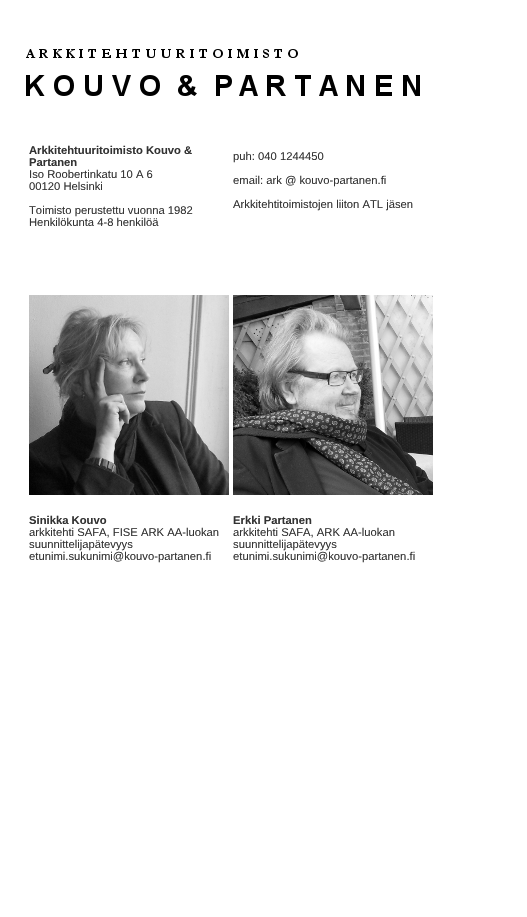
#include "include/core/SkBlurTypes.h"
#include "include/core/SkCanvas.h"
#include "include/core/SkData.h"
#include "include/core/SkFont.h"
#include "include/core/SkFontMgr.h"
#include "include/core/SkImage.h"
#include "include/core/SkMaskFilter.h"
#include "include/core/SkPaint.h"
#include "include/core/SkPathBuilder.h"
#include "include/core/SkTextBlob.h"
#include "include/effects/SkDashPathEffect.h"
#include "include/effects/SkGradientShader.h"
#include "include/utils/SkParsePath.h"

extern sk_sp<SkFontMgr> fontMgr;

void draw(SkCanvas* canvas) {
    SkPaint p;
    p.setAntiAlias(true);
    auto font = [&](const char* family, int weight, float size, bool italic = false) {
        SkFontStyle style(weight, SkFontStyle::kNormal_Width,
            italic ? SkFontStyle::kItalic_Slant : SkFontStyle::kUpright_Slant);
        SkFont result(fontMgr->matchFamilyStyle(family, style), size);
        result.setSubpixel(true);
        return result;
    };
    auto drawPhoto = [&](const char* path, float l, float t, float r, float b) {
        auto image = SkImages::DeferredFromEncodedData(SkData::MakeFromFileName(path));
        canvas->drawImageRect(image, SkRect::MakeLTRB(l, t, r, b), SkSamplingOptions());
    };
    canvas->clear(0xFFFFFFFF);
    drawPhoto("media/1.png", 26, 49, 298, 58);
    drawPhoto("media/2.png", 26, 75, 420, 96);
    auto font1 = font("Liberation Sans", 700, 11.25f);
    p.setColor(0xFF333333);
    canvas->drawString("Arkkitehtuuritoimisto Kouvo &", 29, 154, font1, p);
    canvas->drawString("Partanen", 29, 166, font1, p);
    auto font2 = font("Liberation Sans", 400, 11.25f);
    {
        const struct { const char* s; float x, y; } items[] = {
            {"Iso Roobertinkatu 10 A 6", 29, 178},
            {"00120 Helsinki", 29, 190},
            {"Toimisto perustettu vuonna 1982", 29, 214},
            {"Henkilökunta 4-8 henkilöä", 29, 226},
            {"puh: 040 1244450", 233, 160},
            {"email: ark @ kouvo-partanen.fi", 233, 184},
            {"Arkkitehtitoimistojen liiton ATL jäsen", 233, 208},
        };
        for (auto [s, x, y] : items) {
            canvas->drawString(s, x, y, font2, p);
        }
    }
    drawPhoto("media/3.png", 29, 295, 229, 495);
    drawPhoto("media/4.png", 233, 295, 433, 495);
    canvas->drawString("Sinikka Kouvo", 29, 524, font1, p);
    {
        const struct { const char* s; float x, y; } items[] = {
            {"arkkitehti SAFA, FISE ARK AA-luokan", 29, 536},
            {"suunnittelijapätevyys", 29, 548},
            {"etunimi.sukunimi@kouvo-partanen.fi", 29, 560},
        };
        for (auto [s, x, y] : items) {
            canvas->drawString(s, x, y, font2, p);
        }
    }
    canvas->drawString("Erkki Partanen", 233, 524, font1, p);
    {
        const struct { const char* s; float x, y; } items[] = {
            {"arkkitehti SAFA, ARK AA-luokan", 233, 536},
            {"suunnittelijapätevyys", 233, 548},
            {"etunimi.sukunimi@kouvo-partanen.fi", 233, 560},
        };
        for (auto [s, x, y] : items) {
            canvas->drawString(s, x, y, font2, p);
        }
    }
}
